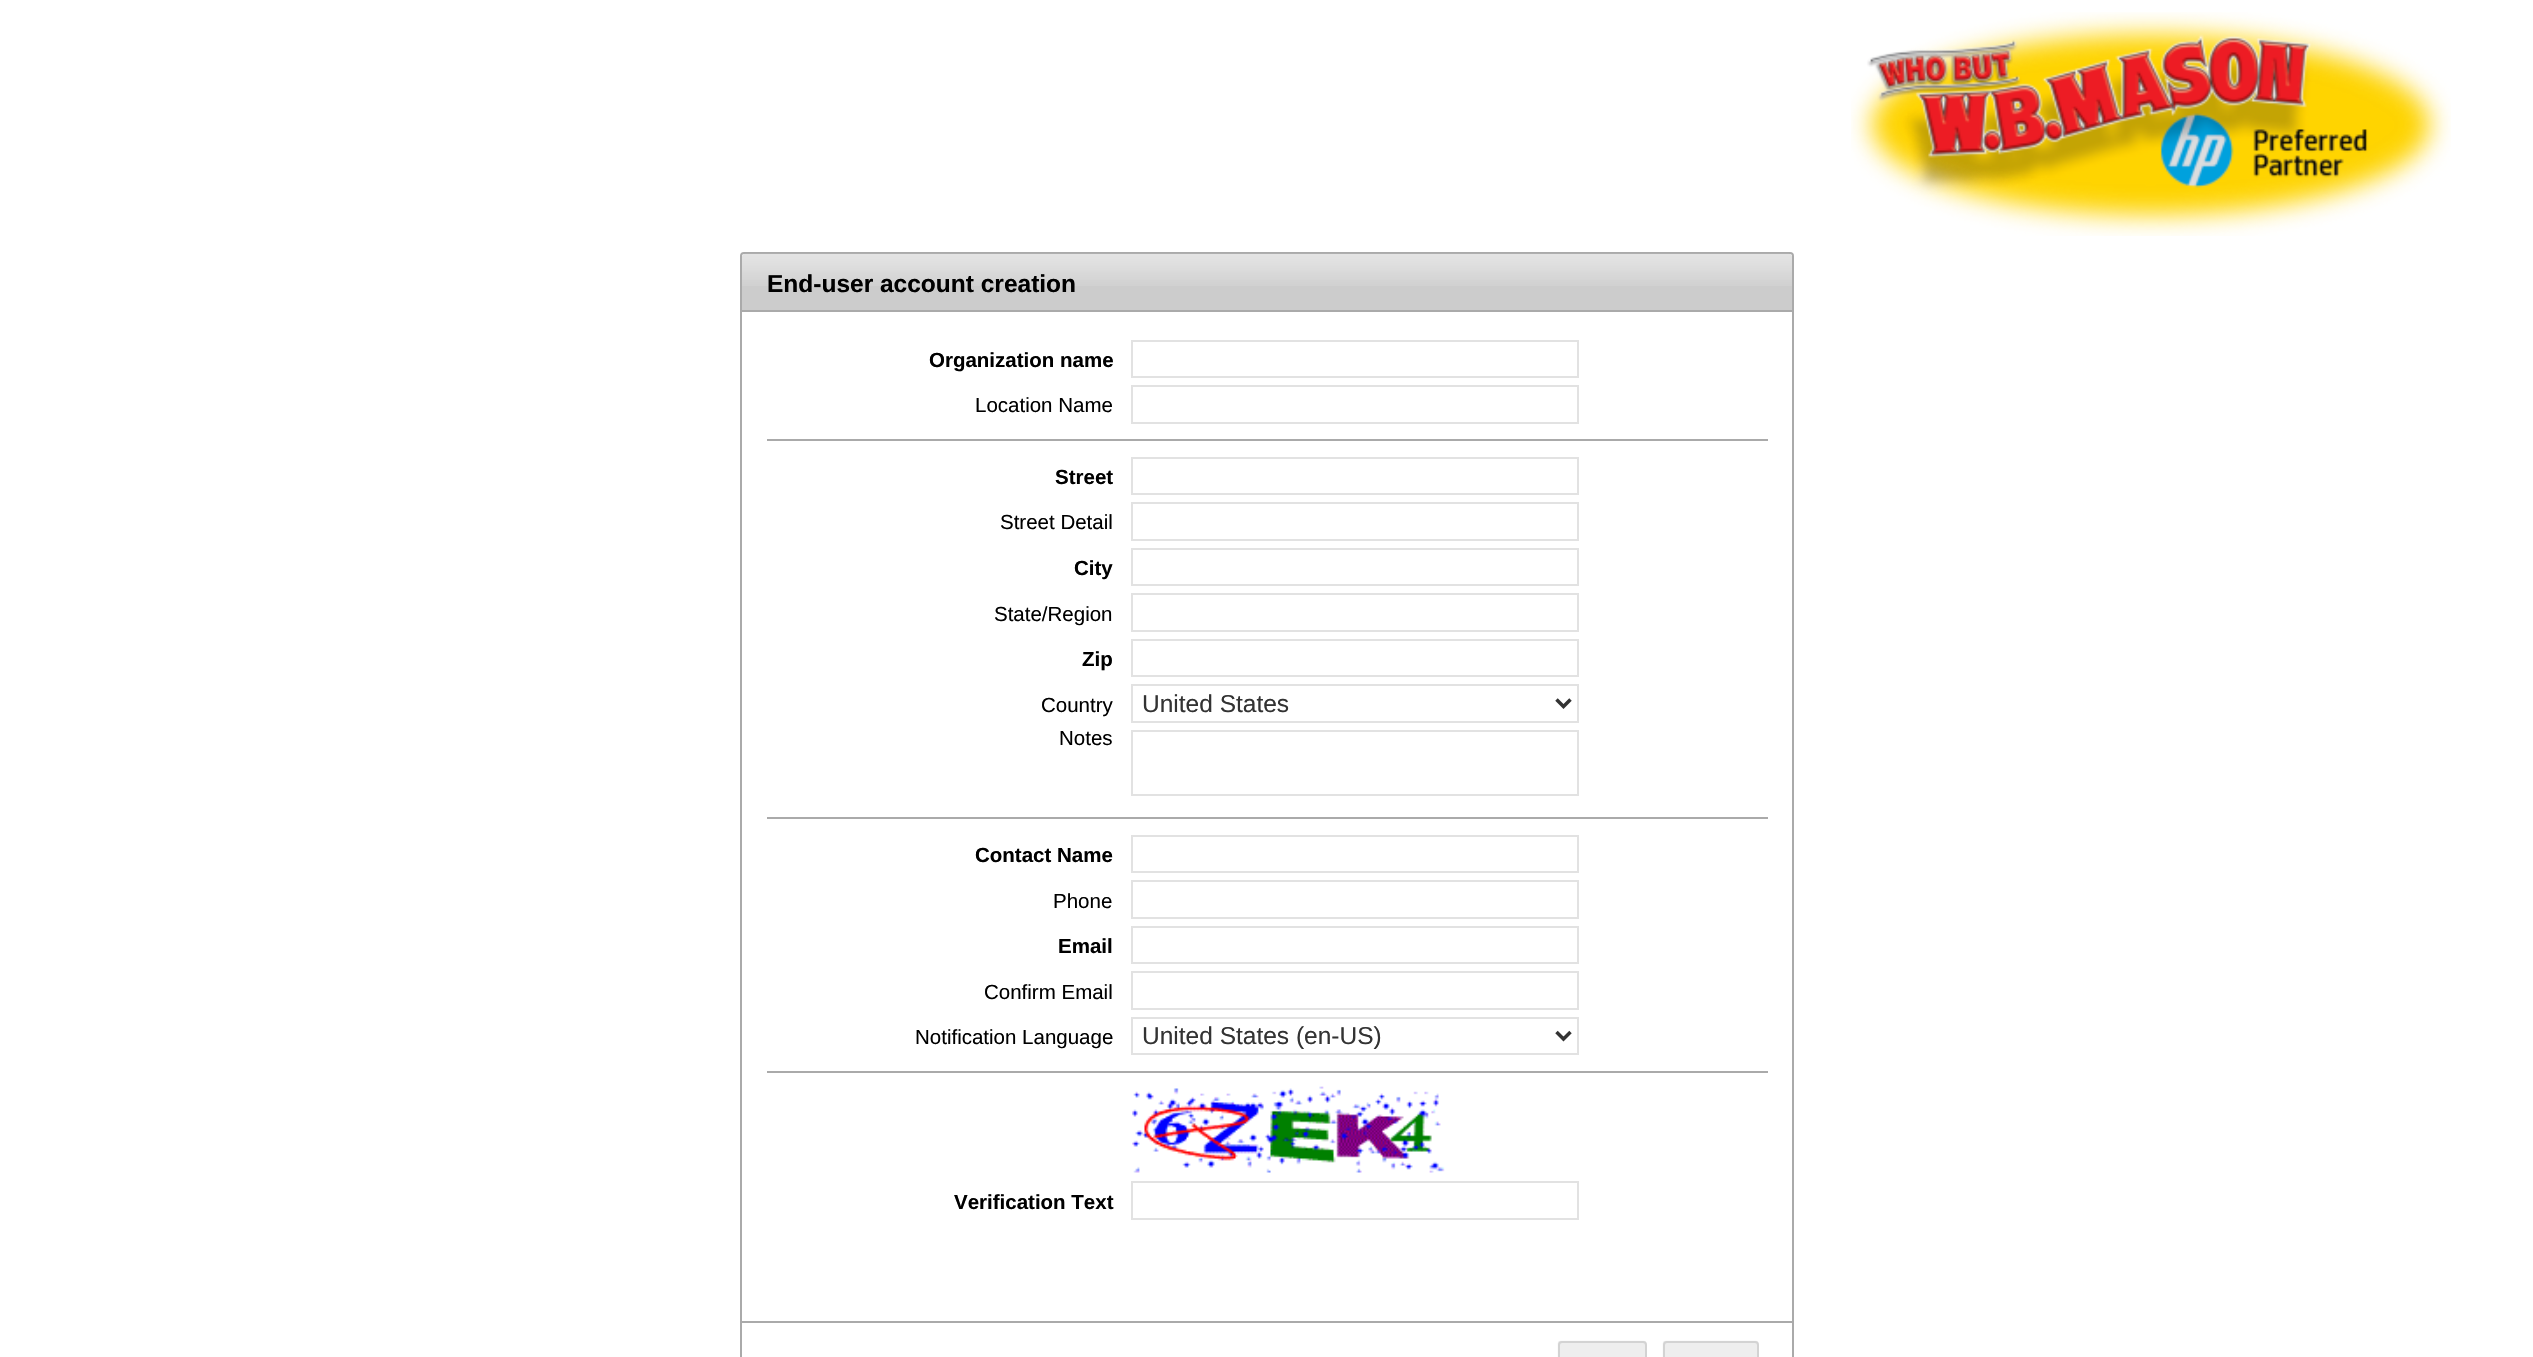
#include "include/core/SkBlurTypes.h"
#include "include/core/SkCanvas.h"
#include "include/core/SkData.h"
#include "include/core/SkFont.h"
#include "include/core/SkFontMgr.h"
#include "include/core/SkImage.h"
#include "include/core/SkMaskFilter.h"
#include "include/core/SkPaint.h"
#include "include/core/SkPathBuilder.h"
#include "include/core/SkTextBlob.h"
#include "include/effects/SkDashPathEffect.h"
#include "include/effects/SkGradientShader.h"
#include "include/utils/SkParsePath.h"

extern sk_sp<SkFontMgr> fontMgr;

void draw(SkCanvas* canvas) {
    SkPaint p;
    p.setAntiAlias(true);
    auto font = [&](const char* family, int weight, float size, bool italic = false) {
        SkFontStyle style(weight, SkFontStyle::kNormal_Width,
            italic ? SkFontStyle::kItalic_Slant : SkFontStyle::kUpright_Slant);
        SkFont result(fontMgr->matchFamilyStyle(family, style), size);
        result.setSubpixel(true);
        return result;
    };
    auto drawPhoto = [&](const char* path, float l, float t, float r, float b) {
        auto image = SkImages::DeferredFromEncodedData(SkData::MakeFromFileName(path));
        canvas->drawImageRect(image, SkRect::MakeLTRB(l, t, r, b), SkSamplingOptions());
    };
    canvas->clear(0xFFFFFFFF);
    drawPhoto("media/1.png", 1851, 12, 2451, 236);
    p.setStyle(SkPaint::kStroke_Style);
    p.setStrokeWidth(2);
    p.setColor(0xFFAAAAAA);
    canvas->drawRoundRect(SkRect::MakeLTRB(741, 253, 1793, 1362), 3, 3, p);
    p.setStyle(SkPaint::kFill_Style);
    p.setColor(0xFFCCCCCC);
    canvas->drawPath(SkPathBuilder().moveTo(746, 254).lineTo(1788, 254).cubicTo(1790, 254, 1792, 256, 1792, 258).lineTo(1792, 312).lineTo(742, 312).lineTo(742, 258).cubicTo(742, 256, 744, 254, 746, 254).close().detach(), p);
    drawPhoto("media/2.png", 742, 253, 1792, 286);
    p.setColor(0xFFAAAAAA);
    canvas->drawRect(SkRect::MakeLTRB(742, 310, 1792, 312), p);
    auto font1 = font("Liberation Sans", 700, 24.5f);
    p.setColor(0xFF000000);
    canvas->drawString("End-user account creation", 767, 292, font1, p);
    p.setColor(0xFFAAAAAA);
    canvas->drawRect(SkRect::MakeLTRB(767, 439, 1768, 441), p);
    auto font2 = font("Liberation Sans", 700, 20.5f);
    p.setColor(0xFF000000);
    canvas->drawString("Organization name", 929, 367, font2, p);
    p.setStyle(SkPaint::kStroke_Style);
    p.setColor(0xFFE2E2E2);
    canvas->drawRect(SkRect::MakeLTRB(1132, 341, 1578, 377), p);
    auto font3 = font("Liberation Sans", 400, 20.5f);
    p.setStyle(SkPaint::kFill_Style);
    p.setColor(0xFF000000);
    canvas->drawString("Location Name", 975, 412, font3, p);
    p.setStyle(SkPaint::kStroke_Style);
    p.setColor(0xFFE2E2E2);
    canvas->drawRect(SkRect::MakeLTRB(1132, 386, 1578, 423), p);
    p.setStyle(SkPaint::kFill_Style);
    p.setColor(0xFFAAAAAA);
    canvas->drawRect(SkRect::MakeLTRB(767, 817, 1768, 819), p);
    p.setColor(0xFF000000);
    canvas->drawString("Street", 1055, 484, font2, p);
    p.setStyle(SkPaint::kStroke_Style);
    p.setColor(0xFFE2E2E2);
    canvas->drawRect(SkRect::MakeLTRB(1132, 458, 1578, 494), p);
    p.setStyle(SkPaint::kFill_Style);
    p.setColor(0xFF000000);
    canvas->drawString("Street Detail", 1000, 529, font3, p);
    p.setStyle(SkPaint::kStroke_Style);
    p.setColor(0xFFE2E2E2);
    canvas->drawRect(SkRect::MakeLTRB(1132, 503, 1578, 540), p);
    p.setStyle(SkPaint::kFill_Style);
    p.setColor(0xFF000000);
    canvas->drawString("City", 1074, 575, font2, p);
    p.setStyle(SkPaint::kStroke_Style);
    p.setColor(0xFFE2E2E2);
    canvas->drawRect(SkRect::MakeLTRB(1132, 549, 1578, 585), p);
    p.setStyle(SkPaint::kFill_Style);
    p.setColor(0xFF000000);
    canvas->drawString("State/Region", 994, 621, font3, p);
    p.setStyle(SkPaint::kStroke_Style);
    p.setColor(0xFFE2E2E2);
    canvas->drawRect(SkRect::MakeLTRB(1132, 594, 1578, 631), p);
    p.setStyle(SkPaint::kFill_Style);
    p.setColor(0xFF000000);
    canvas->drawString("Zip", 1082, 666, font2, p);
    p.setStyle(SkPaint::kStroke_Style);
    p.setColor(0xFFE2E2E2);
    canvas->drawRect(SkRect::MakeLTRB(1132, 640, 1578, 676), p);
    p.setStyle(SkPaint::kFill_Style);
    p.setColor(0xFF000000);
    canvas->drawString("Country", 1041, 712, font3, p);
    p.setStyle(SkPaint::kStroke_Style);
    p.setColor(0xFFE2E2E2);
    canvas->drawRect(SkRect::MakeLTRB(1132, 685, 1578, 722), p);
    p.setStrokeWidth(3.5f);
    p.setColor(0xFF333333);
    canvas->drawPath(SkPathBuilder().moveTo(1556.5f, 699.5f).lineTo(1563.5f, 706.5f).lineTo(1570.5f, 699.5f).detach(), p);
    auto font4 = font("Liberation Sans", 400, 24.5f);
    p.setStyle(SkPaint::kFill_Style);
    canvas->drawString("United States", 1142, 712, font4, p);
    p.setColor(0xFF000000);
    canvas->drawString("Notes", 1059, 745, font3, p);
    p.setStyle(SkPaint::kStroke_Style);
    p.setStrokeWidth(2);
    p.setColor(0xFFE2E2E2);
    canvas->drawRect(SkRect::MakeLTRB(1132, 731, 1578, 795), p);
    p.setStyle(SkPaint::kFill_Style);
    p.setColor(0xFFAAAAAA);
    canvas->drawRect(SkRect::MakeLTRB(767, 1071, 1768, 1073), p);
    p.setColor(0xFF000000);
    canvas->drawString("Contact Name", 975, 862, font2, p);
    p.setStyle(SkPaint::kStroke_Style);
    p.setColor(0xFFE2E2E2);
    canvas->drawRect(SkRect::MakeLTRB(1132, 836, 1578, 872), p);
    p.setStyle(SkPaint::kFill_Style);
    p.setColor(0xFF000000);
    canvas->drawString("Phone", 1053, 908, font3, p);
    p.setStyle(SkPaint::kStroke_Style);
    p.setColor(0xFFE2E2E2);
    canvas->drawRect(SkRect::MakeLTRB(1132, 881, 1578, 918), p);
    p.setStyle(SkPaint::kFill_Style);
    p.setColor(0xFF000000);
    canvas->drawString("Email", 1058, 953, font2, p);
    p.setStyle(SkPaint::kStroke_Style);
    p.setColor(0xFFE2E2E2);
    canvas->drawRect(SkRect::MakeLTRB(1132, 927, 1578, 963), p);
    p.setStyle(SkPaint::kFill_Style);
    p.setColor(0xFF000000);
    canvas->drawString("Confirm Email", 984, 999, font3, p);
    p.setStyle(SkPaint::kStroke_Style);
    p.setColor(0xFFE2E2E2);
    canvas->drawRect(SkRect::MakeLTRB(1132, 972, 1578, 1009), p);
    p.setStyle(SkPaint::kFill_Style);
    p.setColor(0xFF000000);
    canvas->drawString("Notification Language", 915, 1044, font3, p);
    p.setStyle(SkPaint::kStroke_Style);
    p.setColor(0xFFE2E2E2);
    canvas->drawRect(SkRect::MakeLTRB(1132, 1018, 1578, 1054), p);
    p.setStrokeWidth(3.5f);
    p.setColor(0xFF333333);
    canvas->drawPath(SkPathBuilder().moveTo(1556.5f, 1032).lineTo(1563.5f, 1039).lineTo(1570.5f, 1032).detach(), p);
    p.setStyle(SkPaint::kFill_Style);
    canvas->drawString("United States (en-US)", 1142, 1044, font4, p);
    drawPhoto("media/3.png", 1132, 1086, 1445, 1173);
    p.setColor(0xFF000000);
    canvas->drawString("Verification Text", 954, 1209, font2, p);
    p.setStyle(SkPaint::kStroke_Style);
    p.setStrokeWidth(2);
    p.setColor(0xFFE2E2E2);
    canvas->drawRect(SkRect::MakeLTRB(1132, 1182, 1578, 1219), p);
    p.setStyle(SkPaint::kFill_Style);
    p.setColor(0xFFAAAAAA);
    canvas->drawRect(SkRect::MakeLTRB(742, 1321, 1792, 1323), p);
    drawPhoto("media/4.png", 1557, 1340, 1647, 1357);
    p.setStyle(SkPaint::kStroke_Style);
    p.setColor(0xFFD3D3D3);
    canvas->drawRoundRect(SkRect::MakeLTRB(1559, 1342, 1646, 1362), 3, 3, p);
    drawPhoto("media/5.png", 1662, 1340, 1759, 1357);
    canvas->drawRoundRect(SkRect::MakeLTRB(1664, 1342, 1758, 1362), 3, 3, p);
}
